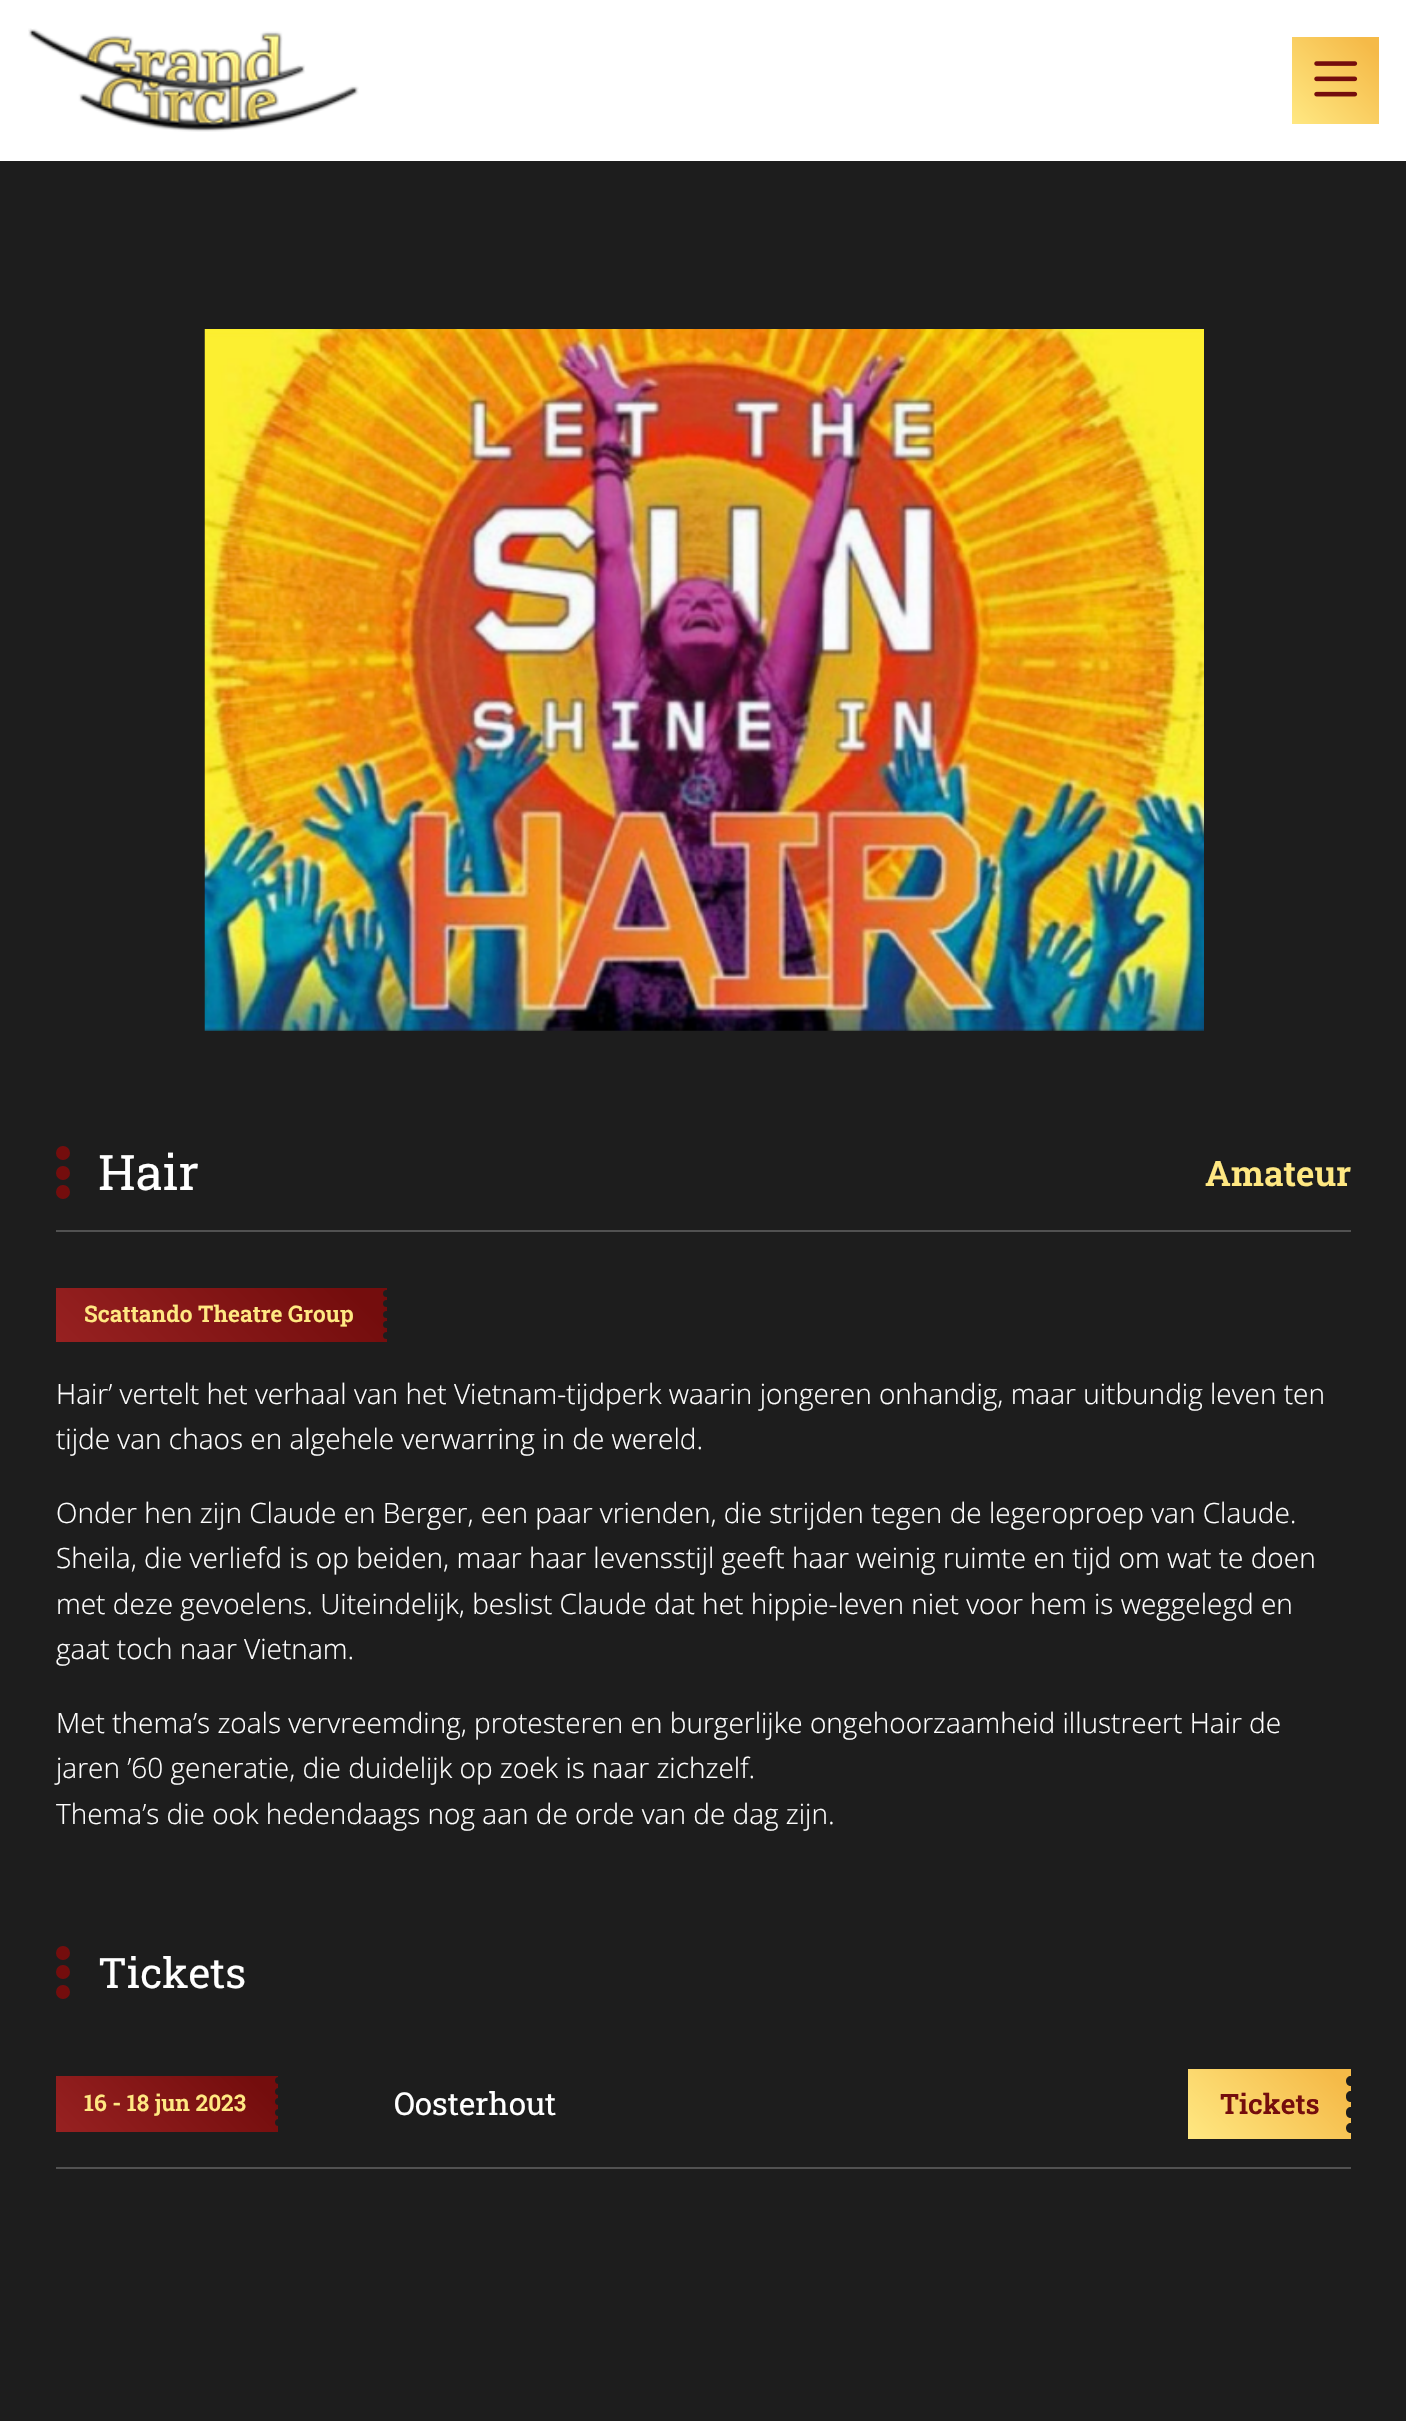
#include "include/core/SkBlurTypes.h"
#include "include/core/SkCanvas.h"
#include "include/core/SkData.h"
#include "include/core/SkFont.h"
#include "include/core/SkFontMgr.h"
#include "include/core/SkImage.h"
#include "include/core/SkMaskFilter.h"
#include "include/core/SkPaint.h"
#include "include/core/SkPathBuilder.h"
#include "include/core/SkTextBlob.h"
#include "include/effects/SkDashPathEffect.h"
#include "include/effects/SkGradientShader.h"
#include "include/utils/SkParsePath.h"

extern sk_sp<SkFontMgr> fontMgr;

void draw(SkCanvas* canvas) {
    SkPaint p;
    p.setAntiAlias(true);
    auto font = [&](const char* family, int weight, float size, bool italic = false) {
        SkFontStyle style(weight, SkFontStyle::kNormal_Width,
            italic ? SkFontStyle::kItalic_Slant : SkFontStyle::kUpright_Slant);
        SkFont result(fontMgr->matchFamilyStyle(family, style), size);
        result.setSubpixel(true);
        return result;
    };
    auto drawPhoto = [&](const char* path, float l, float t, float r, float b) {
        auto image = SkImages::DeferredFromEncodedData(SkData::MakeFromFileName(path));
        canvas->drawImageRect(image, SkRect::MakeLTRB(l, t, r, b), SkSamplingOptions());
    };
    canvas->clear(0xFF1D1D1D);
    p.setColor(0xFFFFFFFF);
    canvas->drawRect(SkRect::MakeLTRB(0, 0, 1406, 161), p);
    drawPhoto("media/1.png", 28, 28, 359, 132);
    {
        const SkColor colors[] = {0xFFFFE882, 0xFFF5BA48};
        const float stops[] = {0, 0.9f};
        const SkPoint ends[] = {{1292, 124}, {1379, 37}};
        p.setShader(SkGradientShader::MakeLinear(ends, colors, stops, 2, SkTileMode::kClamp));
        p.setAlpha(255);
    }
    canvas->drawRect(SkRect::MakeLTRB(1292, 37, 1379, 124), p);
    drawPhoto("media/2.png", 1314, 61, 1358, 97);
    drawPhoto("media/3.png", 204, 329, 1204, 1031);
    p.setShader(nullptr);
    p.setColor(0xFF515151);
    canvas->drawRect(SkRect::MakeLTRB(56, 1230, 1351, 1232), p);
    p.setColor(0xFF740D0D);
    canvas->drawCircle(63, 1192, 7, p);
    canvas->drawCircle(63, 1173, 7, p);
    canvas->drawCircle(63, 1153, 7, p);
    auto font1 = font("Roboto Slab", 400, 49);
    p.setColor(0xFFFFFFFF);
    canvas->drawString("Hair", 98, 1190, font1, p);
    auto font2 = font("Roboto Slab", 600, 35);
    p.setColor(0xFFFFE882);
    canvas->drawString("Amateur", 1205, 1186, font2, p);
    {
        const SkColor colors[] = {0xFF972121, 0xFF740D0D};
        const float stops[] = {0, 0.9f};
        const SkPoint ends[] = {{125, 1411}, {318, 1219}};
        p.setShader(SkGradientShader::MakeLinear(ends, colors, stops, 2, SkTileMode::kClamp));
        p.setAlpha(255);
    }
    canvas->drawRect(SkRect::MakeLTRB(56, 1288, 387, 1342), p);
    auto font3 = font("Roboto Slab", 600, 22.75f);
    p.setShader(nullptr);
    p.setColor(0xFFFFE882);
    canvas->drawString("Scattando Theatre Group", 84, 1322, font3, p);
    p.setColor(0xFF1D1D1D);
    canvas->drawCircle(386.5f, 1335.5f, 3.5f, p);
    canvas->drawCircle(386.5f, 1324.5f, 3.5f, p);
    canvas->drawCircle(386.5f, 1314.5f, 3.5f, p);
    canvas->drawCircle(386.5f, 1303.5f, 3.5f, p);
    canvas->drawCircle(386.5f, 1293.5f, 3.5f, p);
    auto font4 = font("Open Sans", 300, 28);
    p.setColor(0xFFFFFFFF);
    {
        const struct { const char* s; float x, y; } items[] = {
            {"Hair’ vertelt het verhaal van het Vietnam-tijdperk waarin jongeren onhandig, maar uitbundig leven ten", 56, 1404},
            {"tijde van chaos en algehele verwarring in de wereld.", 56, 1449},
            {"Onder hen zijn Claude en Berger, een paar vrienden, die strijden tegen de legeroproep van Claude.", 56, 1523},
            {"Sheila, die verliefd is op beiden, maar haar levensstijl geeft haar weinig ruimte en tijd om wat te doen", 56, 1568},
            {"met deze gevoelens. Uiteindelijk, beslist Claude dat het hippie-leven niet voor hem is weggelegd en", 56, 1614},
            {"gaat toch naar Vietnam.", 56, 1659},
            {"Met thema’s zoals vervreemding, protesteren en burgerlijke ongehoorzaamheid illustreert Hair de", 56, 1733},
            {"jaren ’60 generatie, die duidelijk op zoek is naar zichzelf.", 56, 1778},
            {"Thema’s die ook hedendaags nog aan de orde van de dag zijn.", 56, 1824},
        };
        for (auto [s, x, y] : items) {
            canvas->drawString(s, x, y, font4, p);
        }
    }
    p.setColor(0xFF740D0D);
    canvas->drawCircle(63, 1992, 7, p);
    canvas->drawCircle(63, 1972, 7, p);
    canvas->drawCircle(63, 1953, 7, p);
    auto font5 = font("Roboto Slab", 400, 42);
    p.setColor(0xFFFFFFFF);
    canvas->drawString("Tickets", 98, 1988, font5, p);
    p.setColor(0xFF515151);
    canvas->drawRect(SkRect::MakeLTRB(56, 2167, 1351, 2169), p);
    {
        const SkColor colors[] = {0xFF972121, 0xFF740D0D};
        const float stops[] = {0, 0.9f};
        const SkPoint ends[] = {{98, 2173}, {237, 2034}};
        p.setShader(SkGradientShader::MakeLinear(ends, colors, stops, 2, SkTileMode::kClamp));
        p.setAlpha(255);
    }
    canvas->drawRect(SkRect::MakeLTRB(56, 2076, 278, 2132), p);
    p.setShader(nullptr);
    p.setColor(0xFFFFE882);
    canvas->drawString("16 - 18 jun 2023", 84, 2111, font3, p);
    p.setColor(0xFF1D1D1D);
    canvas->drawCircle(278.5f, 2122.5f, 3.5f, p);
    canvas->drawCircle(278.5f, 2112.5f, 3.5f, p);
    canvas->drawCircle(278.5f, 2101.5f, 3.5f, p);
    canvas->drawCircle(278.5f, 2091.5f, 3.5f, p);
    canvas->drawCircle(278.5f, 2080.5f, 3.5f, p);
    auto font6 = font("Roboto Slab", 400, 31.5f);
    p.setColor(0xFFFFFFFF);
    canvas->drawString("Oosterhout", 394, 2115, font6, p);
    {
        const SkColor colors[] = {0xFFFFE882, 0xFFF5BA48};
        const float stops[] = {0, 0.9f};
        const SkPoint ends[] = {{1211, 2162}, {1328, 2045}};
        p.setShader(SkGradientShader::MakeLinear(ends, colors, stops, 2, SkTileMode::kClamp));
        p.setAlpha(255);
    }
    canvas->drawRect(SkRect::MakeLTRB(1188, 2069, 1351, 2139), p);
    auto font7 = font("Roboto Slab", 600, 28);
    p.setShader(nullptr);
    p.setColor(0xFF740D0D);
    canvas->drawString("Tickets", 1220, 2114, font7, p);
    p.setColor(0xFF1D1D1D);
    canvas->drawPath(SkPathBuilder().moveTo(1351, 2123).lineTo(1351, 2133).cubicTo(1348, 2133, 1346, 2131, 1346, 2128).cubicTo(1346, 2125, 1348, 2123, 1351, 2123).close().detach(), p);
    canvas->drawPath(SkPathBuilder().moveTo(1351, 2107).lineTo(1351, 2118).cubicTo(1348, 2118, 1346, 2116, 1346, 2113).lineTo(1346, 2112).cubicTo(1346, 2109, 1348, 2107, 1351, 2107).close().detach(), p);
    canvas->drawPath(SkPathBuilder().moveTo(1351, 2091).lineTo(1351, 2102).cubicTo(1348, 2102, 1346, 2100, 1346, 2097).lineTo(1346, 2096).cubicTo(1346, 2093, 1348, 2091, 1351, 2091).close().detach(), p);
    canvas->drawPath(SkPathBuilder().moveTo(1351, 2076).lineTo(1351, 2086).cubicTo(1348, 2086, 1346, 2084, 1346, 2081).cubicTo(1346, 2078, 1348, 2076, 1351, 2076).close().detach(), p);
}
